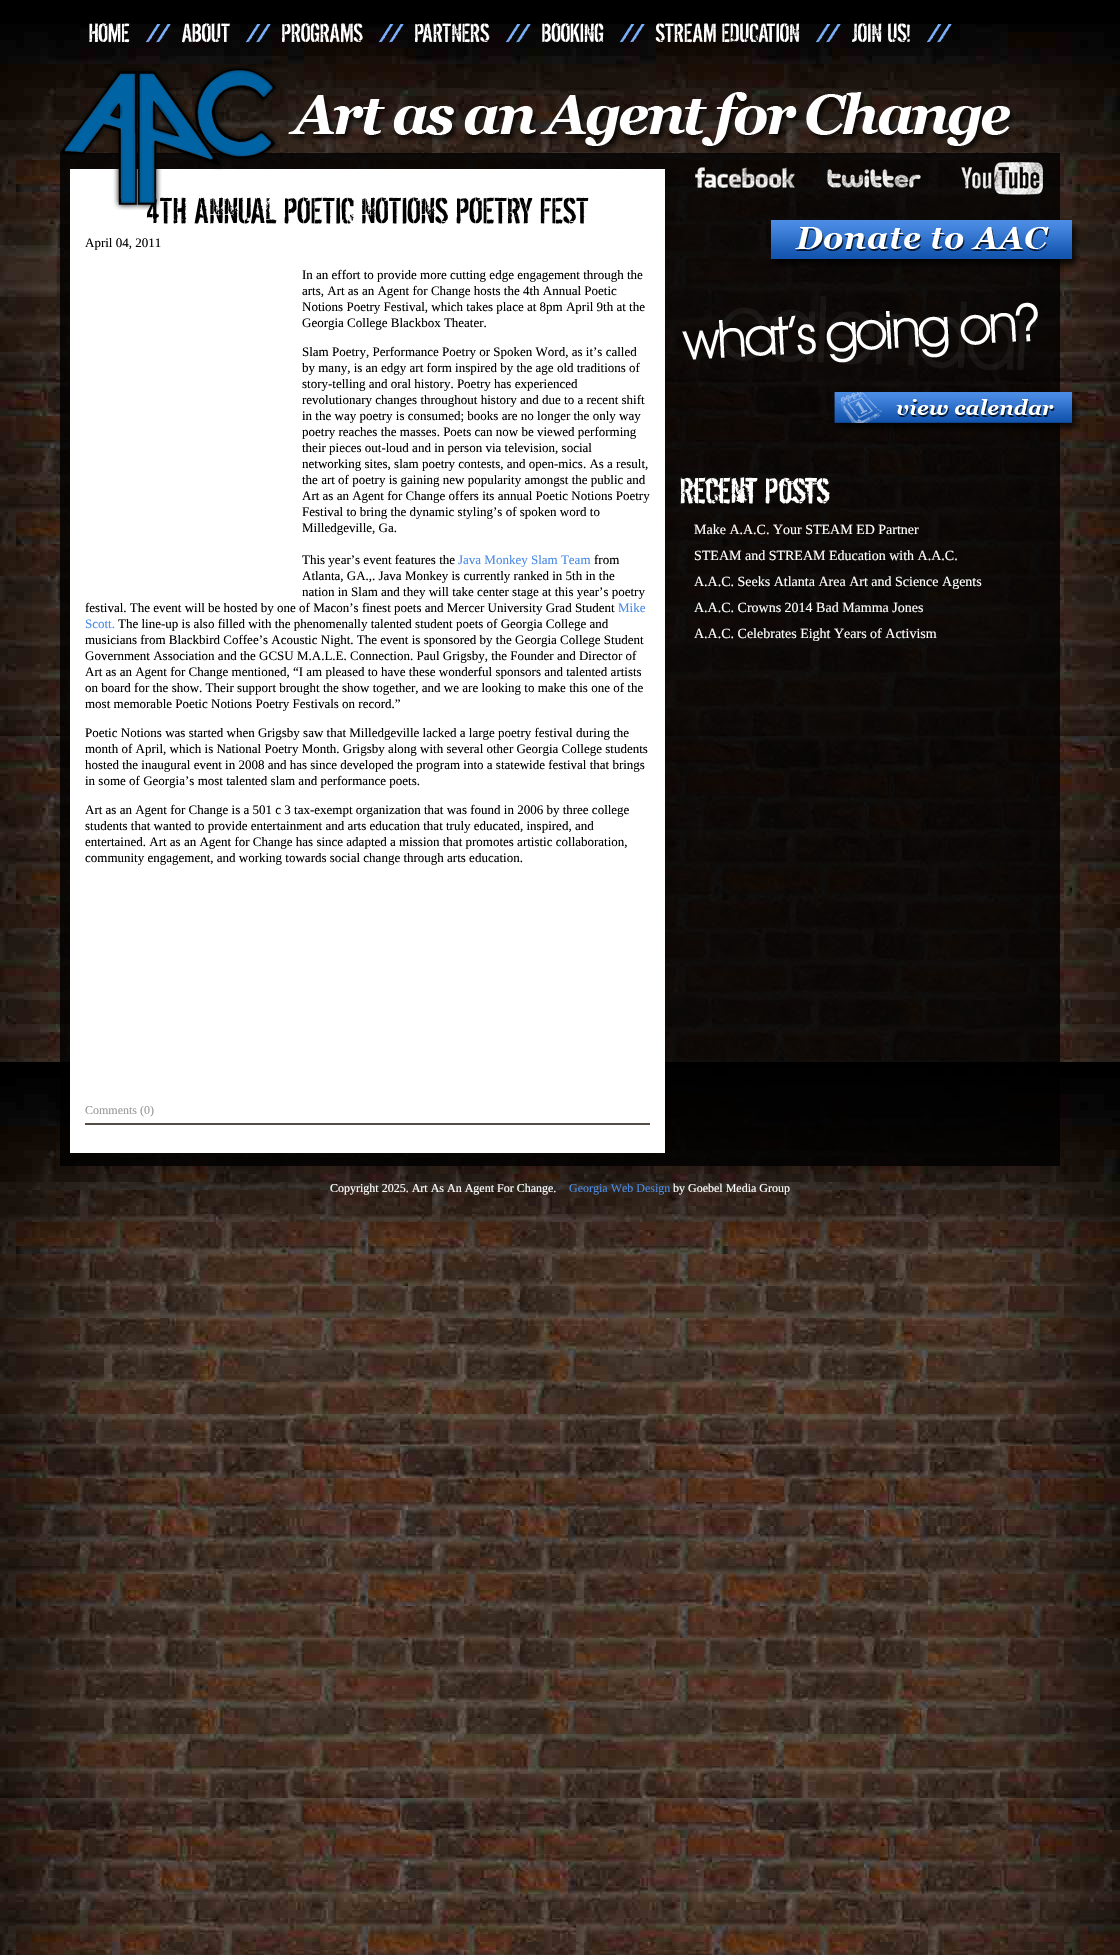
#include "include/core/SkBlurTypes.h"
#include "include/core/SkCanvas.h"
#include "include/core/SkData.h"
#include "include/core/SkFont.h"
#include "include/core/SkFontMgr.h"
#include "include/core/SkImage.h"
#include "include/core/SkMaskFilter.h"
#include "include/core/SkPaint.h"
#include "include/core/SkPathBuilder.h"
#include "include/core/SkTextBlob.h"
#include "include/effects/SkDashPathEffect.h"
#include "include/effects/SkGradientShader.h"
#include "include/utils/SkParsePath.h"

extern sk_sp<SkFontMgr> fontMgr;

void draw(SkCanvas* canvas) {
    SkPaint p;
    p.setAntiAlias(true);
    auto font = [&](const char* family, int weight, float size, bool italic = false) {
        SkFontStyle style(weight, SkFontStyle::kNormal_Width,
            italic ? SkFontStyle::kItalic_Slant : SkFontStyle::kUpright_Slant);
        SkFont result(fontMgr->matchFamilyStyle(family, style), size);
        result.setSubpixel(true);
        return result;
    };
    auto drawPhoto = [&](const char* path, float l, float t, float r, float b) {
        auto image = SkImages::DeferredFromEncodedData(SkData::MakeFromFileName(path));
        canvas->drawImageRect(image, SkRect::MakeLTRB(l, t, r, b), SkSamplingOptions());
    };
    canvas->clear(0xFF000000);
    drawPhoto("media/1.png", 0, 24, 1120, 1955);
    p.setColor(0x0DFFFFFF);
    canvas->drawRect(SkRect::MakeLTRB(0, 246, 56, 296), p);
    p.setStyle(SkPaint::kStroke_Style);
    p.setStrokeWidth(1);
    p.setColor(0x0DBBBBBB);
    canvas->drawRect(SkRect::MakeLTRB(-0.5f, 245.5f, 56.5f, 296.5f), p);
    drawPhoto("media/2.png", 89, 23, 130, 43);
    drawPhoto("media/3.png", 146, 24, 171, 43);
    drawPhoto("media/4.png", 182, 23, 230, 43);
    drawPhoto("media/5.png", 246, 24, 271, 43);
    drawPhoto("media/6.png", 282, 22, 363, 43);
    drawPhoto("media/7.png", 379, 24, 404, 43);
    drawPhoto("media/8.png", 415, 23, 490, 43);
    drawPhoto("media/9.png", 506, 24, 531, 43);
    drawPhoto("media/10.png", 542, 22, 604, 43);
    drawPhoto("media/11.png", 620, 24, 645, 43);
    drawPhoto("media/12.png", 655, 23, 716, 43);
    drawPhoto("media/13.png", 722, 23, 800, 43);
    drawPhoto("media/14.png", 816, 24, 841, 43);
    drawPhoto("media/15.png", 852, 23, 882, 43);
    drawPhoto("media/16.png", 888, 23, 910, 43);
    drawPhoto("media/17.png", 927, 24, 952, 43);
    p.setStyle(SkPaint::kFill_Style);
    p.setColor(0xD1000000);
    canvas->drawRect(SkRect::MakeLTRB(60, 153, 1060, 1166), p);
    p.setColor(0xFFFFFFFF);
    canvas->drawRect(SkRect::MakeLTRB(70, 169, 665, 1153), p);
    drawPhoto("media/19.png", 146, 197, 187, 224);
    drawPhoto("media/20.png", 194, 197, 278, 224);
    drawPhoto("media/21.png", 284, 196, 354, 224);
    drawPhoto("media/22.png", 362, 197, 448, 224);
    drawPhoto("media/23.png", 456, 196, 533, 224);
    drawPhoto("media/24.png", 540, 196, 589, 224);
    drawPhoto("media/18.png", 60, 66, 1015, 210);
    auto font1 = font("Liberation Serif", 400, 13);
    p.setColor(0xFF000000);
    {
        const struct { const char* s; float x, y; } items[] = {
            {"April 04, 2011", 85, 247},
            {"In an effort to provide more cutting edge engagement through the", 302, 279},
            {"arts, Art as an Agent for Change hosts the 4th Annual Poetic", 302, 295},
            {"Notions Poetry Festival, which takes place at 8pm April 9th at the", 302, 311},
            {"Georgia College Blackbox Theater.", 302, 327},
            {"Slam Poetry, Performance Poetry or Spoken Word, as it’s called", 302, 356},
            {"by many, is an edgy art form inspired by the age old traditions of", 302, 372},
            {"story-telling and oral history. Poetry has experienced", 302, 388},
            {"revolutionary changes throughout history and due to a recent shift", 302, 404},
            {"in the way poetry is consumed; books are no longer the only way", 302, 420},
            {"poetry reaches the masses. Poets can now be viewed performing", 302, 436},
            {"their pieces out-loud and in person via television, social", 302, 452},
            {"networking sites, slam poetry contests, and open-mics. As a result,", 302, 468},
            {"the art of poetry is gaining new popularity amongst the public and", 302, 484},
            {"Art as an Agent for Change offers its annual Poetic Notions Poetry", 302, 500},
            {"Festival to bring the dynamic styling’s of spoken word to", 302, 516},
            {"Milledgeville, Ga.", 302, 532},
            {"This year’s event features the", 302, 564},
        };
        for (auto [s, x, y] : items) {
            canvas->drawString(s, x, y, font1, p);
        }
    }
    p.setColor(0xFF4B8BE4);
    canvas->drawString("Java Monkey Slam Team", 458, 564, font1, p);
    p.setColor(0xFF000000);
    {
        const struct { const char* s; float x, y; } items[] = {
            {"from", 594, 564},
            {"Atlanta, GA.,. Java Monkey is currently ranked in 5th in the", 302, 580},
            {"nation in Slam and they will take center stage at this year’s poetry", 302, 596},
            {"festival. The event will be hosted by one of Macon’s finest poets and Mercer University Grad Student", 85, 612},
        };
        for (auto [s, x, y] : items) {
            canvas->drawString(s, x, y, font1, p);
        }
    }
    p.setColor(0xFF4B8BE4);
    canvas->drawString("Mike", 618, 612, font1, p);
    canvas->drawString("Scott.", 85, 628, font1, p);
    p.setColor(0xFF000000);
    {
        const struct { const char* s; float x, y; } items[] = {
            {"The line-up is also filled with the phenomenally talented student poets of Georgia College and", 118, 628},
            {"musicians from Blackbird Coffee’s Acoustic Night. The event is sponsored by the Georgia College Student", 85, 644},
            {"Government Association and the GCSU M.A.L.E. Connection. Paul Grigsby, the Founder and Director of", 85, 660},
            {"Art as an Agent for Change mentioned, “I am pleased to have these wonderful sponsors and talented artists", 85, 676},
            {"on board for the show. Their support brought the show together, and we are looking to make this one of the", 85, 692},
            {"most memorable Poetic Notions Poetry Festivals on record.”", 85, 708},
            {"Poetic Notions was started when Grigsby saw that Milledgeville lacked a large poetry festival during the", 85, 737},
            {"month of April, which is National Poetry Month. Grigsby along with several other Georgia College students", 85, 753},
            {"hosted the inaugural event in 2008 and has since developed the program into a statewide festival that brings", 85, 769},
            {"in some of Georgia’s most talented slam and performance poets.", 85, 785},
            {"Art as an Agent for Change is a 501 c 3 tax-exempt organization that was found in 2006 by three college", 85, 814},
            {"students that wanted to provide entertainment and arts education that truly educated, inspired, and", 85, 830},
            {"entertained. Art as an Agent for Change has since adapted a mission that promotes artistic collaboration,", 85, 846},
            {"community engagement, and working towards social change through arts education.", 85, 862},
        };
        for (auto [s, x, y] : items) {
            canvas->drawString(s, x, y, font1, p);
        }
    }
    p.setColor(0xFF524D47);
    canvas->drawRect(SkRect::MakeLTRB(85, 1123, 650, 1125), p);
    auto font2 = font("Liberation Serif", 400, 12);
    p.setColor(0xFF999999);
    canvas->drawString("Comments (0)", 85, 1114, font2, p);
    drawPhoto("media/25.png", 695, 162, 1043, 195);
    drawPhoto("media/26.png", 771, 220, 1080, 269);
    drawPhoto("media/27.png", 682, 296, 1038, 370);
    drawPhoto("media/28.png", 834, 392, 1080, 432);
    drawPhoto("media/29.png", 680, 477, 758, 504);
    drawPhoto("media/30.png", 765, 477, 830, 504);
    auto font3 = font("Liberation Serif", 400, 14);
    p.setColor(0xFFFFFFFF);
    {
        const struct { const char* s; float x, y; } items[] = {
            {"Make A.A.C. Your STEAM ED Partner", 694, 534},
            {"STEAM and STREAM Education with A.A.C.", 694, 560},
            {"A.A.C. Seeks Atlanta Area Art and Science Agents", 694, 586},
            {"A.A.C. Crowns 2014 Bad Mamma Jones", 694, 612},
            {"A.A.C. Celebrates Eight Years of Activism", 694, 638},
        };
        for (auto [s, x, y] : items) {
            canvas->drawString(s, x, y, font3, p);
        }
    }
    canvas->drawString("Copyright 2025. Art As An Agent For Change.", 330, 1192, font2, p);
    p.setColor(0xFF4B8BE4);
    canvas->drawString("Georgia Web Design", 569, 1192, font2, p);
    p.setColor(0xFFFFFFFF);
    canvas->drawString("by Goebel Media Group", 673, 1192, font2, p);
}
